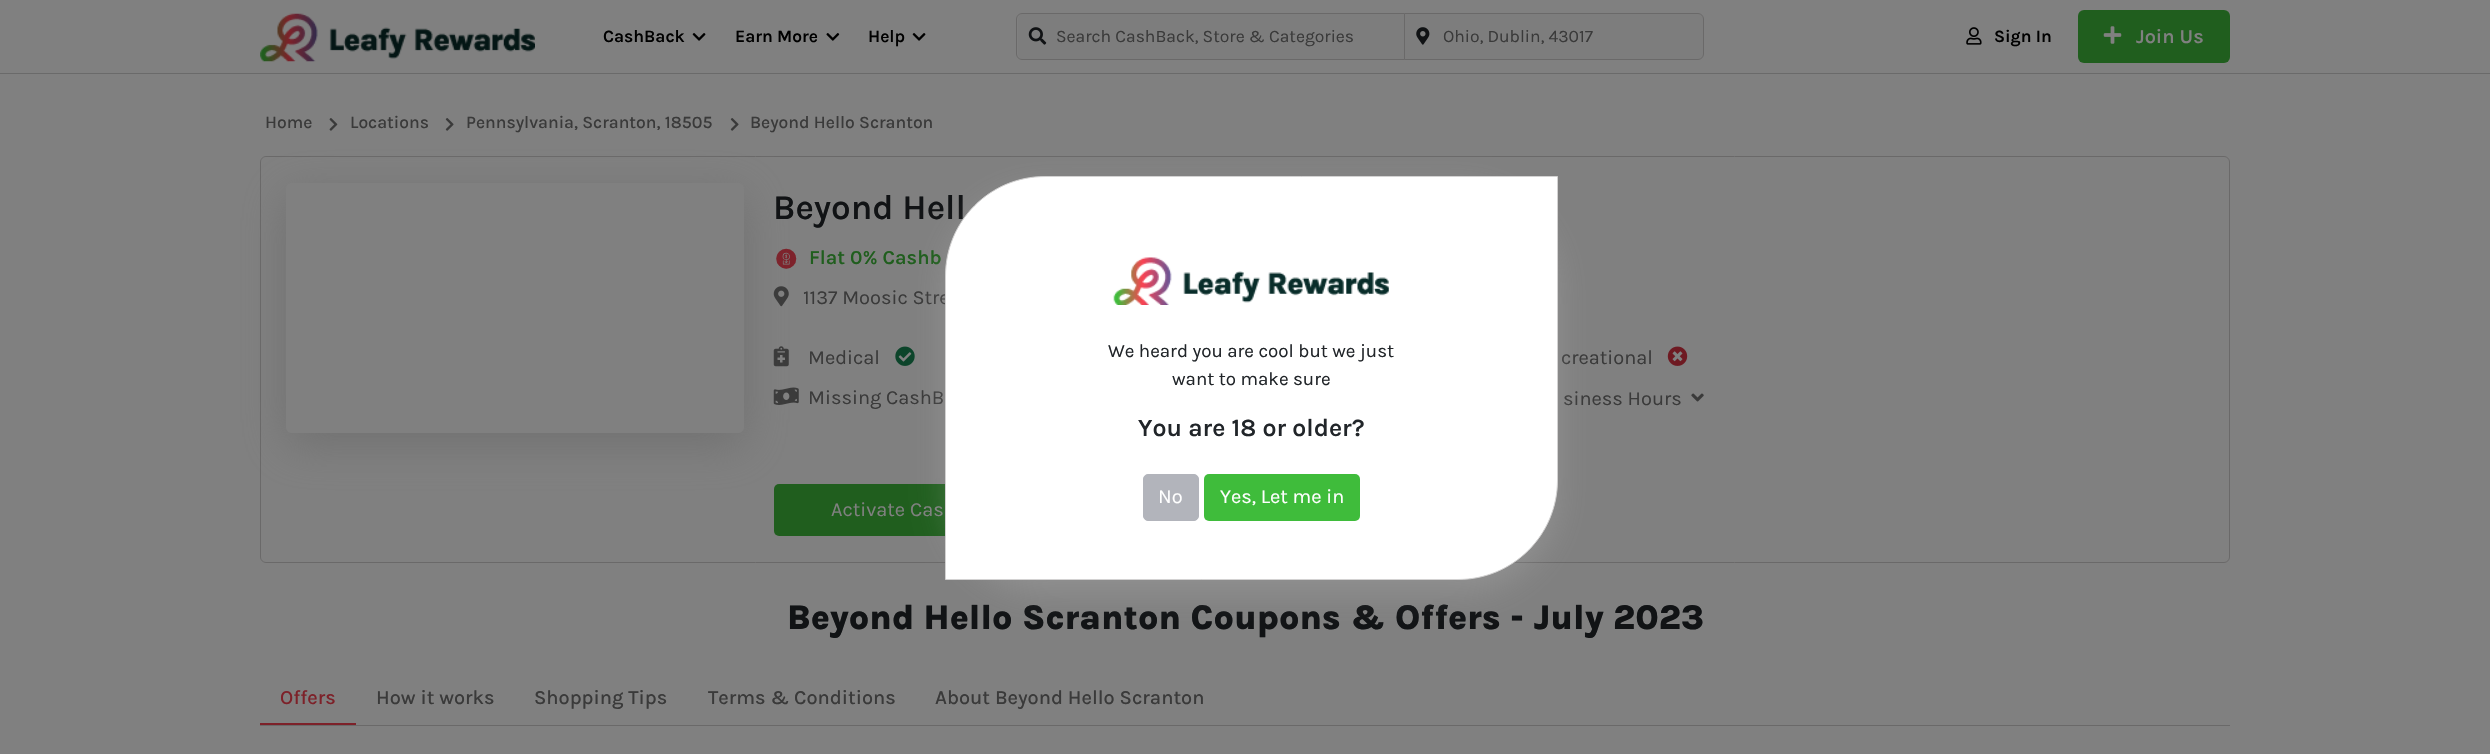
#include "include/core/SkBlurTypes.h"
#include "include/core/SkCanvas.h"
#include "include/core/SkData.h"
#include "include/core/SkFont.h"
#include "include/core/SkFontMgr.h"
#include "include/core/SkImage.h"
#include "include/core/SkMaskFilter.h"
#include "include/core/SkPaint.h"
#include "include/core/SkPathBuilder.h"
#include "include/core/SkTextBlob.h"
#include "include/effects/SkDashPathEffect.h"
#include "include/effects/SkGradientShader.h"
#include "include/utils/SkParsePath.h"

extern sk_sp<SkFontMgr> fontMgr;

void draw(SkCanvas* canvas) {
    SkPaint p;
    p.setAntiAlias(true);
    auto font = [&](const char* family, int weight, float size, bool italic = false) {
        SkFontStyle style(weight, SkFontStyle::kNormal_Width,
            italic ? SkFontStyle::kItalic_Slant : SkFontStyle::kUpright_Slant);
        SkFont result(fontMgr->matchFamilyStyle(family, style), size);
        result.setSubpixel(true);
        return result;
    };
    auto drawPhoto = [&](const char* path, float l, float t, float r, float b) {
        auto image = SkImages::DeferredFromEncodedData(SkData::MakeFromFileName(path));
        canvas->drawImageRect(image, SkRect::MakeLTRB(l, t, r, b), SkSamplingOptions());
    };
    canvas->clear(0xFF808080);
    p.setColor(0xFF6A6A6A);
    canvas->drawRect(SkRect::MakeLTRB(0, 73, 2490, 74), p);
    drawPhoto("media/1.png", 260, 13, 535, 62);
    auto font1 = font("Karla", 600, 17.5f);
    p.setColor(0xFF000000);
    canvas->drawString("CashBack", 603, 42, font1, p);
    drawPhoto("media/2.png", 692, 33, 706, 41);
    canvas->drawString("Earn More", 735, 42, font1, p);
    drawPhoto("media/3.png", 826, 33, 840, 41);
    canvas->drawString("Help", 868, 42, font1, p);
    drawPhoto("media/2.png", 912, 33, 926, 41);
    p.setColor(0xFF7D7D7D);
    canvas->drawPath(SkPathBuilder().moveTo(1023, 14).lineTo(1404, 14).lineTo(1404, 59).lineTo(1023, 59).cubicTo(1020, 59, 1018, 57, 1018, 54).lineTo(1018, 19).cubicTo(1018, 16, 1020, 14, 1023, 14).close().detach(), p);
    p.setStyle(SkPaint::kStroke_Style);
    p.setStrokeWidth(1);
    p.setColor(0xFF6A6969);
    canvas->drawPath(SkPathBuilder().moveTo(1022, 13.5f).lineTo(1404.5f, 13.5f).lineTo(1404.5f, 59.5f).lineTo(1022, 59.5f).cubicTo(1019, 59.5f, 1016.5f, 57, 1016.5f, 54).lineTo(1016.5f, 19).cubicTo(1016.5f, 16, 1019, 13.5f, 1022, 13.5f).close().detach(), p);
    drawPhoto("media/4.png", 1028, 27, 1047, 45);
    auto font2 = font("Karla", 400, 17.5f);
    p.setStyle(SkPaint::kFill_Style);
    p.setColor(0xFF3A3A3A);
    canvas->drawString("Search CashBack, Store & Categories", 1056, 42, font2, p);
    p.setColor(0xFF7D7D7D);
    canvas->drawPath(SkPathBuilder().moveTo(1404.5f, 13.5f).lineTo(1698, 13.5f).cubicTo(1701, 13.5f, 1703.5f, 16, 1703.5f, 19).lineTo(1703.5f, 54).cubicTo(1703.5f, 57, 1701, 59.5f, 1698, 59.5f).lineTo(1404.5f, 59.5f).close().detach(), p);
    p.setStyle(SkPaint::kStroke_Style);
    p.setColor(0xFF6A6969);
    canvas->drawPath(SkPathBuilder().moveTo(1404.5f, 13.5f).lineTo(1698, 13.5f).cubicTo(1701, 13.5f, 1703.5f, 16, 1703.5f, 19).lineTo(1703.5f, 54).cubicTo(1703.5f, 57, 1701, 59.5f, 1698, 59.5f).lineTo(1404.5f, 59.5f).close().detach(), p);
    drawPhoto("media/5.png", 1416, 27, 1430, 45);
    p.setStyle(SkPaint::kFill_Style);
    p.setColor(0xFF3A3A3A);
    canvas->drawString("Ohio, Dublin, 43017", 1443, 42, font2, p);
    drawPhoto("media/6.png", 1966, 27, 1982, 45);
    p.setColor(0xFF000000);
    canvas->drawString("Sign In", 1994, 42, font1, p);
    p.setColor(0xFF205E1E);
    canvas->drawRoundRect(SkRect::MakeLTRB(2078, 10, 2230, 63), 6, 6, p);
    drawPhoto("media/7.png", 2103, 26, 2122, 44);
    auto font3 = font("Karla", 600, 20);
    p.setColor(0xFF808080);
    canvas->drawString("Join Us", 2136, 43, font3, p);
    auto font4 = font("Karla", 500, 17.5f);
    p.setColor(0xFF3A3A3A);
    canvas->drawString("Home", 265, 128, font4, p);
    drawPhoto("media/8.png", 329, 118, 338, 131);
    canvas->drawString("Locations", 350, 128, font4, p);
    drawPhoto("media/9.png", 445, 118, 454, 131);
    canvas->drawString("Pennsylvania, Scranton, 18505", 466, 128, font4, p);
    drawPhoto("media/9.png", 730, 118, 739, 131);
    canvas->drawString("Beyond Hello Scranton", 750, 128, font4, p);
    p.setStyle(SkPaint::kStroke_Style);
    p.setColor(0xFF6A6969);
    canvas->drawRoundRect(SkRect::MakeLTRB(260.5f, 156.5f, 2229.5f, 562.5f), 5.5f, 5.5f, p);
    drawPhoto("media/10.png", 776, 248, 797, 269);
    drawPhoto("media/11.png", 773, 286, 789, 307);
    drawPhoto("media/12.png", 773, 346, 789, 367);
    drawPhoto("media/15.png", 773, 387, 799, 405);
    p.setStyle(SkPaint::kFill_Style);
    p.setColor(0xFF205E1E);
    canvas->drawRoundRect(SkRect::MakeLTRB(774, 484, 1058, 536), 5, 5, p);
    canvas->save();
    canvas->clipPath(SkPathBuilder(SkPathFillType::kEvenOdd).moveTo(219, 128).lineTo(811, 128).lineTo(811, 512).lineTo(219, 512).close().moveTo(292, 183).lineTo(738, 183).cubicTo(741.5f, 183, 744, 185.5f, 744, 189).lineTo(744, 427).cubicTo(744, 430.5f, 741.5f, 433, 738, 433).lineTo(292, 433).cubicTo(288.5f, 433, 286, 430.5f, 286, 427).lineTo(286, 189).cubicTo(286, 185.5f, 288.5f, 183, 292, 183).close().detach(), true);
    p.setColor(0xB36A6969);
    p.setMaskFilter(SkMaskFilter::MakeBlur(kNormal_SkBlurStyle, 22));
    canvas->drawRoundRect(SkRect::MakeLTRB(286, 195, 744, 445), 6, 6, p);
    p.setMaskFilter(nullptr);
    canvas->restore();
    auto font5 = font("Karla", 600, 35);
    p.setColor(0xFF111315);
    canvas->drawString("Beyond Hell", 773, 219, font5, p);
    p.setColor(0xFF205E1E);
    canvas->drawString("Flat 0% Cashb", 809, 264, font3, p);
    auto font6 = font("Karla", 400, 20);
    p.setColor(0xFF3A3A3A);
    canvas->drawString("1137 Moosic Stre", 803, 304, font6, p);
    canvas->drawString("Medical", 808, 364, font6, p);
    drawPhoto("media/13.png", 895, 346, 915, 366);
    canvas->drawString("creational", 1561, 364, font6, p);
    drawPhoto("media/14.png", 1667, 346, 1688, 366);
    canvas->drawString("Missing CashB", 808, 404, font6, p);
    canvas->drawString("siness Hours", 1563, 405, font6, p);
    drawPhoto("media/16.png", 1691, 393, 1704, 402);
    p.setColor(0xFF808080);
    canvas->drawString("Activate Cas", 831, 516, font6, p);
    auto font7 = font("Karla", 800, 35);
    p.setColor(0xFF111315);
    canvas->drawString("Beyond Hello Scranton Coupons & Offers - July 2023", 787, 629, font7, p);
    p.setColor(0xFF6A6969);
    canvas->drawRect(SkRect::MakeLTRB(260, 725, 2230, 726), p);
    p.setColor(0xFF7D2129);
    canvas->drawRect(SkRect::MakeLTRB(260, 723, 356, 725), p);
    auto font8 = font("Karla", 500, 20);
    canvas->drawString("Offers", 280, 704, font8, p);
    p.setColor(0xFF3A3A3A);
    {
        const struct { const char* s; float x, y; } items[] = {
            {"How it works", 376, 704},
            {"Shopping Tips", 534, 704},
            {"Terms & Conditions", 708, 704},
            {"About Beyond Hello Scranton", 935, 704},
        };
        for (auto [s, x, y] : items) {
            canvas->drawString(s, x, y, font8, p);
        }
    }
    p.setColor(0x33D3D2D2);
    p.setMaskFilter(SkMaskFilter::MakeBlur(kNormal_SkBlurStyle, 15.5f));
    canvas->drawRoundRect(SkRect::MakeLTRB(945, 189, 1558, 593), 100, 100, p);
    p.setMaskFilter(nullptr);
    p.setColor(0xFFFFFFFF);
    canvas->drawPath(SkPathBuilder().moveTo(1045, 176.5f).lineTo(1557.5f, 176.5f).lineTo(1557.5f, 480).cubicTo(1557.5f, 535, 1513, 579.5f, 1458, 579.5f).lineTo(945.5f, 579.5f).lineTo(945.5f, 276).cubicTo(945.5f, 221, 990, 176.5f, 1045, 176.5f).close().detach(), p);
    p.setStyle(SkPaint::kStroke_Style);
    p.setColor(0xFFD3D2D2);
    canvas->drawPath(SkPathBuilder().moveTo(1045, 176.5f).lineTo(1557.5f, 176.5f).lineTo(1557.5f, 480).cubicTo(1557.5f, 535, 1513, 579.5f, 1458, 579.5f).lineTo(945.5f, 579.5f).lineTo(945.5f, 276).cubicTo(945.5f, 221, 990, 176.5f, 1045, 176.5f).close().detach(), p);
    drawPhoto("media/17.png", 1113, 257, 1389, 305);
    auto font9 = font("Karla", 400, 18.75f);
    p.setStyle(SkPaint::kFill_Style);
    p.setColor(0xFF212529);
    canvas->drawString("We heard you are cool but we just", 1108, 357, font9, p);
    canvas->drawString("want to make sure", 1172, 385, font9, p);
    auto font10 = font("Karla", 600, 25);
    canvas->drawString("You are 18 or older?", 1138, 436, font10, p);
    p.setColor(0xFFB2B4BB);
    canvas->drawRoundRect(SkRect::MakeLTRB(1143.5f, 474.5f, 1198.5f, 520.5f), 4.5f, 4.5f, p);
    p.setStyle(SkPaint::kStroke_Style);
    canvas->drawRoundRect(SkRect::MakeLTRB(1143.5f, 474.5f, 1198.5f, 520.5f), 4.5f, 4.5f, p);
    p.setStyle(SkPaint::kFill_Style);
    p.setColor(0xFFFFFFFF);
    canvas->drawString("No", 1158, 503, font6, p);
    p.setColor(0xFF3FBC3B);
    canvas->drawRoundRect(SkRect::MakeLTRB(1204, 474, 1360, 521), 5, 5, p);
    p.setColor(0xFFFFFFFF);
    canvas->drawString("Yes, Let me in", 1220, 503, font6, p);
}
